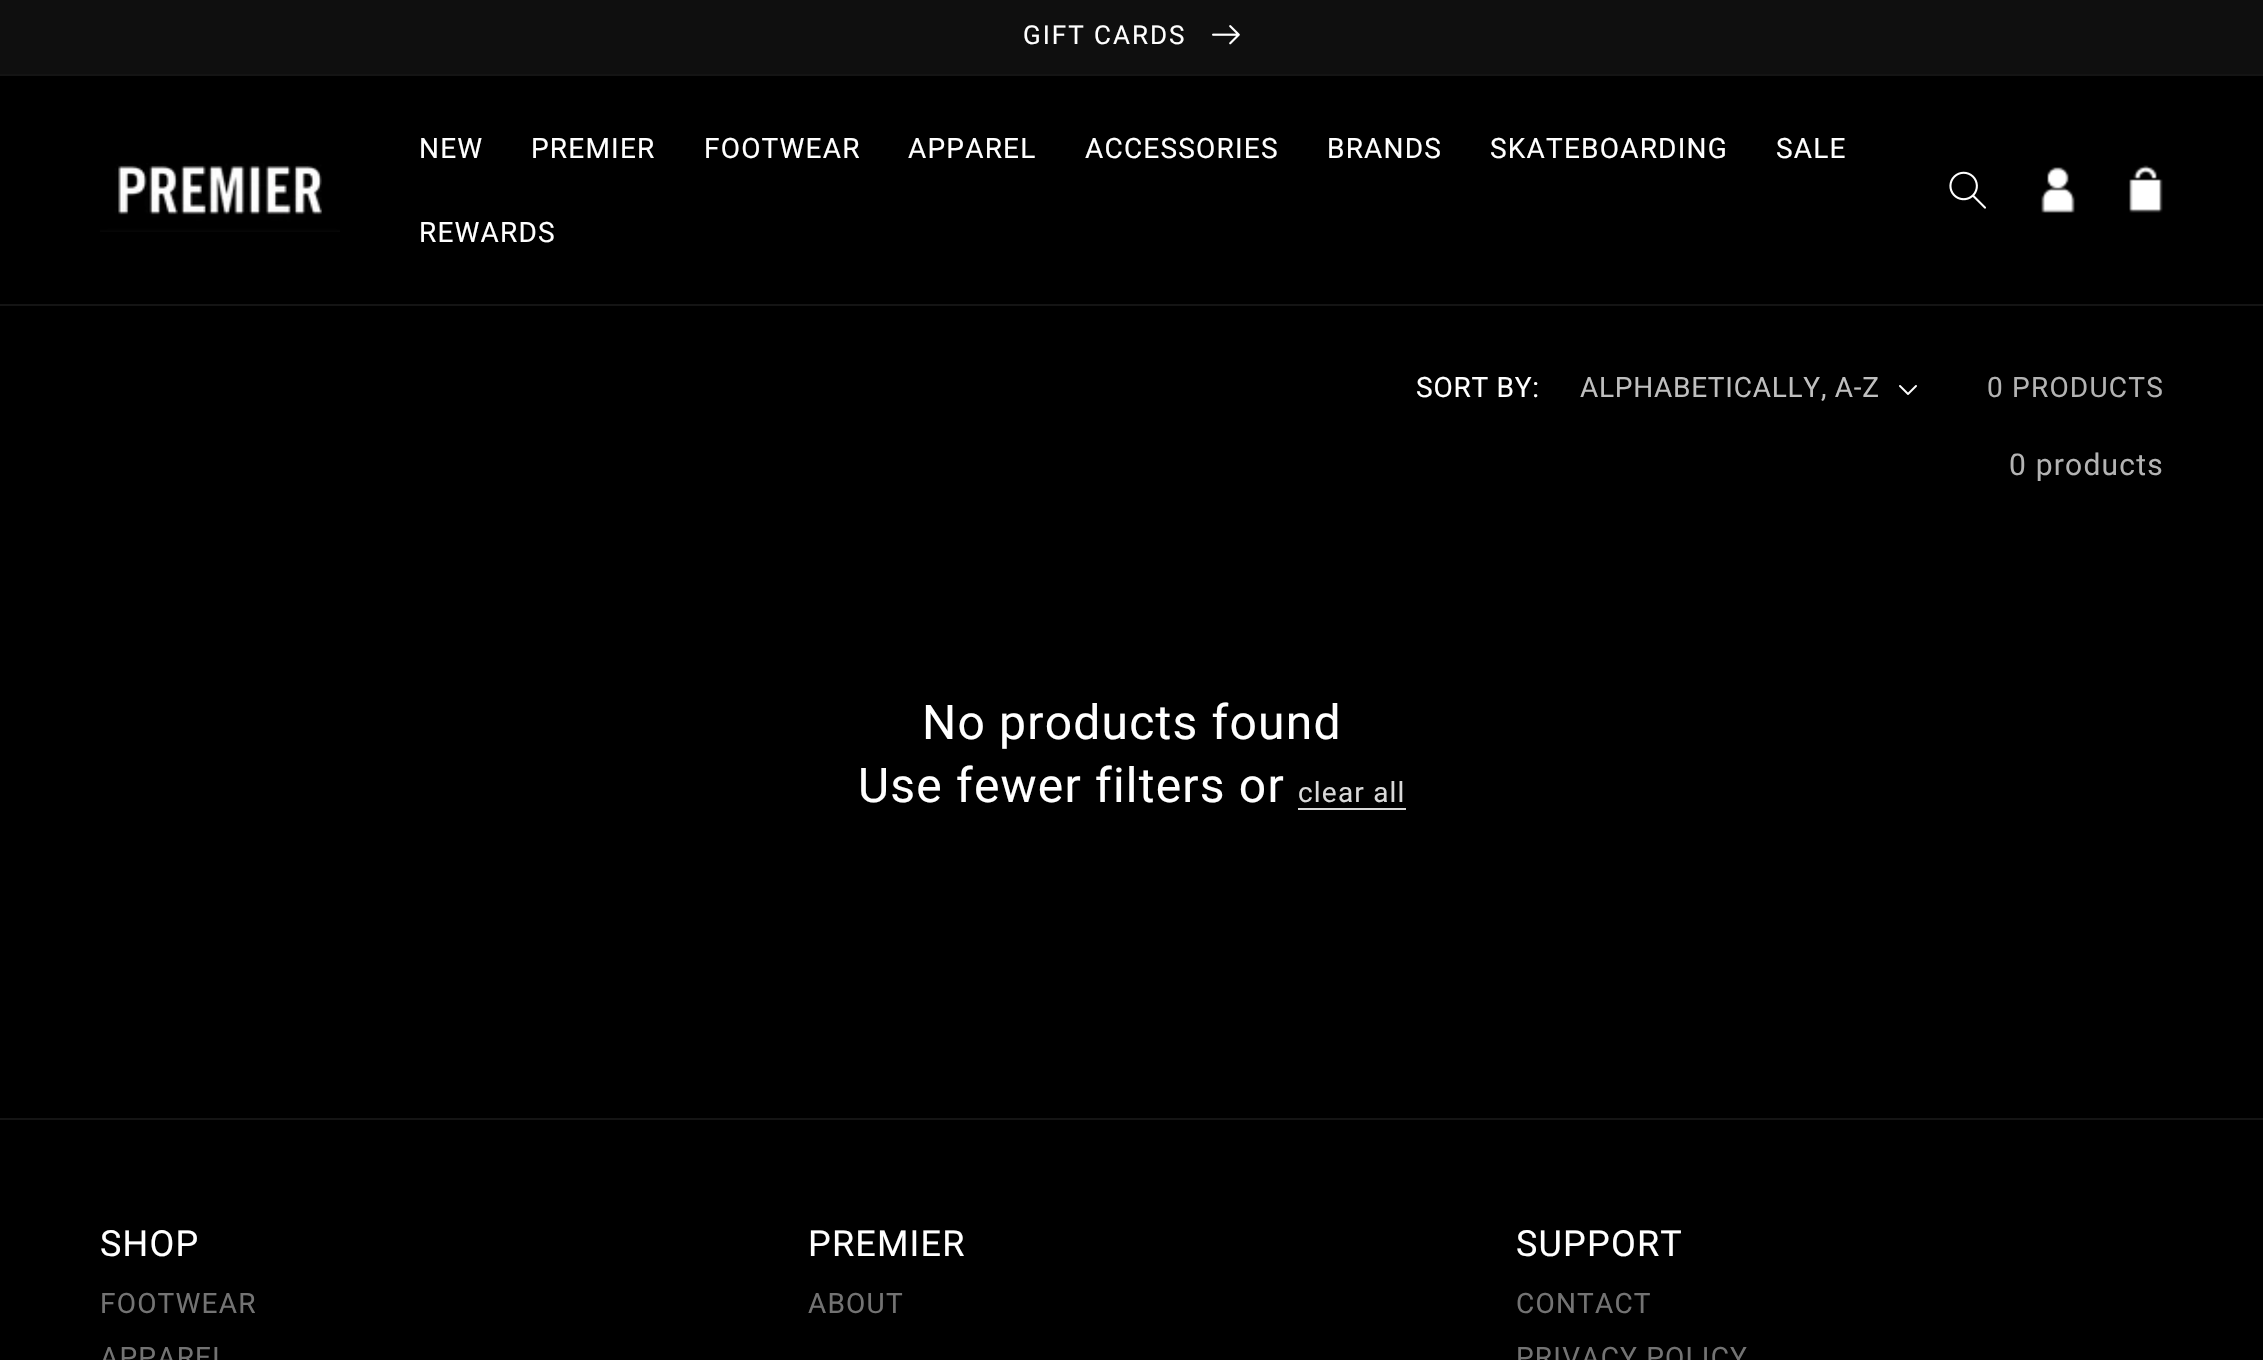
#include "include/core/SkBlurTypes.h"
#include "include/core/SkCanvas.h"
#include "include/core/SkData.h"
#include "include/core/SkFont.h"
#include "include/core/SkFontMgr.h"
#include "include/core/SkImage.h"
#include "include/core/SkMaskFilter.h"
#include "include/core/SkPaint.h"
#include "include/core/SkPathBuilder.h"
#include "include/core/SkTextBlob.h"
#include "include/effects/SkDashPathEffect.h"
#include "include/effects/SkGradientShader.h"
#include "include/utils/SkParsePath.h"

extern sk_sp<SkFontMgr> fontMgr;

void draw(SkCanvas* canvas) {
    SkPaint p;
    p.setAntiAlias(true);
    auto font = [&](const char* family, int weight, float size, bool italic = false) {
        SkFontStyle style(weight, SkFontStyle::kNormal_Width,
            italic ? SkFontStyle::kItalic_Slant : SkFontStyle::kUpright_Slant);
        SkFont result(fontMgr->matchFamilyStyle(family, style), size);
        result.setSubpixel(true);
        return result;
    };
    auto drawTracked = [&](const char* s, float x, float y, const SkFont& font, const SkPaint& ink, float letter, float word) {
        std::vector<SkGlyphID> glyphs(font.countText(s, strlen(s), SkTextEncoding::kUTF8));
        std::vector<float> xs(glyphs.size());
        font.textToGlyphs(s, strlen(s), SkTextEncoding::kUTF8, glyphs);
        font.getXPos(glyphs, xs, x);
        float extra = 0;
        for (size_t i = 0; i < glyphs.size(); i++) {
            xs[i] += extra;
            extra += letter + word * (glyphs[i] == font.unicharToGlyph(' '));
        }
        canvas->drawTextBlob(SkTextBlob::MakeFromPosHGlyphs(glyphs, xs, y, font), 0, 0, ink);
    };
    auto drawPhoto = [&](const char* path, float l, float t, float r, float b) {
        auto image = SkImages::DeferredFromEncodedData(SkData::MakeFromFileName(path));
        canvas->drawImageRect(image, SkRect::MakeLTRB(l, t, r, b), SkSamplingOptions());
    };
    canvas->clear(0xFF000000);
    p.setColor(0xFF141414);
    canvas->drawRect(SkRect::MakeLTRB(0, 74, 2263, 76), p);
    p.setColor(0xFF0F0F0F);
    canvas->drawRect(SkRect::MakeLTRB(0, 0, 2263, 74), p);
    auto font1 = font("Roboto", 400, 26);
    p.setColor(0xFFFFFFFF);
    drawTracked("GIFT CARDS", 1023, 44, font1, p, 2, 0);
    drawPhoto("media/1.png", 1212, 25, 1240, 45);
    p.setColor(0xFF141414);
    canvas->drawRect(SkRect::MakeLTRB(0, 304, 2263, 306), p);
    drawPhoto("media/2.png", 100, 163, 340, 232);
    auto font2 = font("Roboto", 400, 28);
    p.setColor(0xFFFFFFFF);
    {
        const struct { const char* s; float x, y; } items[] = {
            {"NEW", 419, 158},
            {"PREMIER", 531, 158},
            {"FOOTWEAR", 704, 158},
            {"APPAREL", 908, 158},
            {"ACCESSORIES", 1085, 158},
            {"BRANDS", 1327, 158},
            {"SKATEBOARDING", 1490, 158},
            {"SALE", 1776, 158},
            {"REWARDS", 419, 242},
        };
        for (auto [s, x, y] : items) {
            drawTracked(s, x, y, font2, p, 1.2f, 0);
        }
    }
    drawPhoto("media/3.png", 1949, 171, 1986, 209);
    drawPhoto("media/4.png", 2041, 167, 2075, 213);
    drawPhoto("media/5.png", 2129, 165, 2163, 213);
    drawTracked("SORT BY:", 1416, 397, font2, p, 0.75f, 0);
    p.setColor(0xFFBFBFBF);
    drawTracked("ALPHABETICALLY, A-Z", 1580, 397, font2, p, 0.75f, 0);
    drawPhoto("media/6.png", 1899, 385, 1917, 395);
    p.setColor(0xFFB3B3B3);
    drawTracked("0 PRODUCTS", 1987, 397, font2, p, 1.2f, 0);
    auto font3 = font("Roboto", 400, 30);
    drawTracked("0 products", 2009, 475, font3, p, 1.2f, 0);
    auto font4 = font("Roboto", 400, 48);
    p.setColor(0xFFFFFFFF);
    drawTracked("No products found", 922, 739, font4, p, 1.2f, 0);
    drawTracked("Use fewer filters or", 858, 802, font4, p, 1.2f, 0);
    p.setColor(0xFFD9D9D9);
    drawTracked("clear all", 1298, 802, font2, p, 1.2f, 0);
    canvas->drawRect(SkRect::MakeLTRB(1298, 808, 1406, 810), p);
    p.setColor(0xFF141414);
    canvas->drawRect(SkRect::MakeLTRB(0, 1118, 2263, 1120), p);
    auto font5 = font("Roboto", 400, 36);
    p.setColor(0xFFFFFFFF);
    drawTracked("SHOP", 100, 1256, font5, p, 1.2f, 0);
    p.setColor(0xFF737373);
    drawTracked("FOOTWEAR", 100, 1313, font2, p, 1.2f, 0);
    drawTracked("APPAREL", 100, 1367, font2, p, 1.2f, 0);
    p.setColor(0xFFFFFFFF);
    drawTracked("PREMIER", 808, 1256, font5, p, 1.2f, 0);
    p.setColor(0xFF737373);
    drawTracked("ABOUT", 808, 1313, font2, p, 1.2f, 0);
    p.setColor(0xFFFFFFFF);
    drawTracked("SUPPORT", 1516, 1256, font5, p, 1.2f, 0);
    p.setColor(0xFF737373);
    drawTracked("CONTACT", 1516, 1313, font2, p, 1.2f, 0);
    drawTracked("PRIVACY POLICY", 1516, 1367, font2, p, 1.2f, 0);
}
